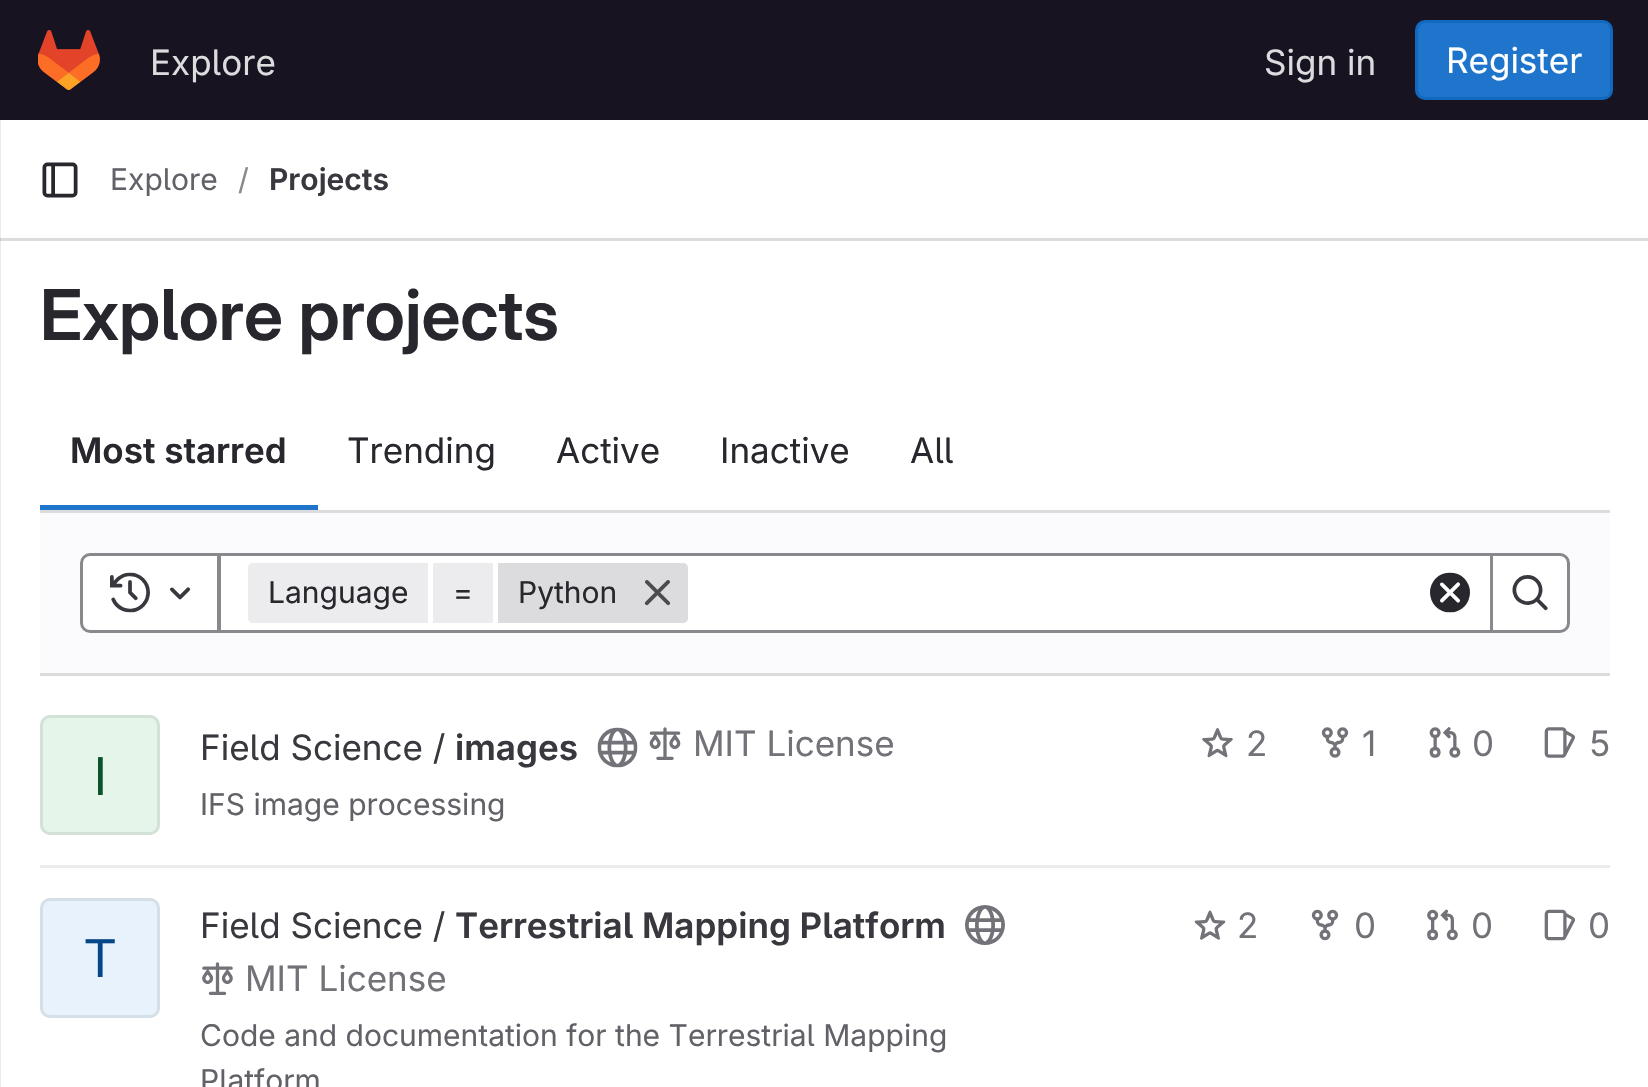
#include "include/core/SkBlurTypes.h"
#include "include/core/SkCanvas.h"
#include "include/core/SkData.h"
#include "include/core/SkFont.h"
#include "include/core/SkFontMgr.h"
#include "include/core/SkImage.h"
#include "include/core/SkMaskFilter.h"
#include "include/core/SkPaint.h"
#include "include/core/SkPathBuilder.h"
#include "include/core/SkTextBlob.h"
#include "include/effects/SkDashPathEffect.h"
#include "include/effects/SkGradientShader.h"
#include "include/utils/SkParsePath.h"

extern sk_sp<SkFontMgr> fontMgr;

void draw(SkCanvas* canvas) {
    SkPaint p;
    p.setAntiAlias(true);
    auto font = [&](const char* family, int weight, float size, bool italic = false) {
        SkFontStyle style(weight, SkFontStyle::kNormal_Width,
            italic ? SkFontStyle::kItalic_Slant : SkFontStyle::kUpright_Slant);
        SkFont result(fontMgr->matchFamilyStyle(family, style), size);
        result.setSubpixel(true);
        return result;
    };
    auto drawPhoto = [&](const char* path, float l, float t, float r, float b) {
        auto image = SkImages::DeferredFromEncodedData(SkData::MakeFromFileName(path));
        canvas->drawImageRect(image, SkRect::MakeLTRB(l, t, r, b), SkSamplingOptions());
    };
    canvas->clear(0xFFFFFFFF);
    p.setColor(0xFFEBEBEB);
    canvas->drawRect(SkRect::MakeLTRB(0, 120, 1, 1087), p);
    p.setColor(0xFF171321);
    canvas->drawRect(SkRect::MakeLTRB(0, 0, 1648, 120), p);
    drawPhoto("media/1.png", 38, 30, 100, 90);
    auto font1 = font("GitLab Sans", 400, 35);
    p.setColor(0xFFDCDCDE);
    canvas->drawString("Explore", 150, 75, font1, p);
    canvas->drawString("Sign in", 1264, 75, font1, p);
    p.setColor(0xFF1F75CB);
    canvas->drawRoundRect(SkRect::MakeLTRB(1416.5f, 21.5f, 1611.5f, 98.5f), 8.5f, 8.5f, p);
    p.setStyle(SkPaint::kStroke_Style);
    p.setStrokeWidth(3);
    p.setColor(0xFF1068BF);
    canvas->drawRoundRect(SkRect::MakeLTRB(1416.5f, 21.5f, 1611.5f, 98.5f), 8.5f, 8.5f, p);
    p.setStyle(SkPaint::kFill_Style);
    p.setColor(0xFFFFFFFF);
    canvas->drawString("Register", 1446, 73, font1, p);
    p.setColor(0xFFDCDCDE);
    canvas->drawRect(SkRect::MakeLTRB(0, 238, 1648, 241), p);
    p.setColor(0xFFCBCBCD);
    canvas->drawRect(SkRect::MakeLTRB(0, 238, 1, 241), p);
    drawPhoto("media/2.png", 42, 162, 78, 198);
    auto font2 = font("GitLab Sans", 400, 30);
    p.setColor(0xFF626168);
    canvas->drawString("Explore", 110, 190, font2, p);
    p.setColor(0xFF89888D);
    canvas->drawString("/", 238, 190, font2, p);
    auto font3 = font("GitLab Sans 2", 600, 30);
    p.setColor(0xFF3A383F);
    canvas->drawString("Projects", 269, 190, font3, p);
    auto font4 = font("GitLab Sans", 600, 70);
    p.setColor(0xFF28272D);
    canvas->drawString("Explore projects", 40, 340, font4, p);
    auto font5 = font("GitLab Sans 2", 600, 35);
    canvas->drawString("Most starred", 70, 463, font5, p);
    p.setColor(0xFF1F75CB);
    canvas->drawRect(SkRect::MakeLTRB(40, 505, 318, 510), p);
    p.setColor(0xFF28272D);
    {
        const struct { const char* s; float x, y; } items[] = {
            {"Trending", 347, 463},
            {"Active", 556, 463},
            {"Inactive", 720, 463},
            {"All", 910, 463},
        };
        for (auto [s, x, y] : items) {
            canvas->drawString(s, x, y, font1, p);
        }
    }
    {
        const struct { float l, t, r, b; SkColor color; } items[] = {
            {40, 513, 1610, 673, 0xFFFBFAFD},
            {40, 510, 1610, 513, 0xFFDCDCDE},
            {40, 673, 1610, 676, 0xFFDCDCDE},
        };
        for (auto [l, t, r, b, color] : items) {
            p.setColor(color);
            canvas->drawRect(SkRect::MakeLTRB(l, t, r, b), p);
        }
    }
    p.setColor(0xFFFFFFFF);
    canvas->drawRect(SkRect::MakeLTRB(219.5f, 554.5f, 1491.5f, 631.5f), p);
    p.setStyle(SkPaint::kStroke_Style);
    p.setColor(0xFF89888D);
    canvas->drawRect(SkRect::MakeLTRB(219.5f, 554.5f, 1491.5f, 631.5f), p);
    p.setStyle(SkPaint::kFill_Style);
    p.setColor(0xFFFFFFFF);
    canvas->drawPath(SkPathBuilder().moveTo(90, 554.5f).lineTo(218.5f, 554.5f).lineTo(218.5f, 631.5f).lineTo(90, 631.5f).cubicTo(85.5f, 631.5f, 81.5f, 627.5f, 81.5f, 623).lineTo(81.5f, 563).cubicTo(81.5f, 558.5f, 85.5f, 554.5f, 90, 554.5f).close().detach(), p);
    p.setStyle(SkPaint::kStroke_Style);
    p.setColor(0xFF89888D);
    canvas->drawPath(SkPathBuilder().moveTo(90, 554.5f).lineTo(218.5f, 554.5f).lineTo(218.5f, 631.5f).lineTo(90, 631.5f).cubicTo(85.5f, 631.5f, 81.5f, 627.5f, 81.5f, 623).lineTo(81.5f, 563).cubicTo(81.5f, 558.5f, 85.5f, 554.5f, 90, 554.5f).close().detach(), p);
    drawPhoto("media/3.png", 110, 572, 150, 613);
    drawPhoto("media/4.png", 170, 587, 191, 600);
    p.setStyle(SkPaint::kFill_Style);
    p.setColor(0xFFECECEF);
    canvas->drawPath(SkPathBuilder().moveTo(253, 563).lineTo(428, 563).lineTo(428, 623).lineTo(253, 623).cubicTo(250, 623, 248, 621, 248, 618).lineTo(248, 568).cubicTo(248, 565, 250, 563, 253, 563).close().detach(), p);
    p.setColor(0xFF28272D);
    canvas->drawString("Language", 268, 603, font2, p);
    p.setColor(0xFFECECEF);
    canvas->drawRect(SkRect::MakeLTRB(433, 563, 493, 623), p);
    p.setColor(0xFF28272D);
    canvas->drawString("=", 453, 603, font2, p);
    p.setColor(0xFFDCDCDE);
    canvas->drawPath(SkPathBuilder().moveTo(498, 563).lineTo(683, 563).cubicTo(686, 563, 688, 565, 688, 568).lineTo(688, 618).cubicTo(688, 621, 686, 623, 683, 623).lineTo(498, 623).close().detach(), p);
    p.setColor(0xFF28272D);
    canvas->drawString("Python", 518, 603, font2, p);
    drawPhoto("media/5.png", 644, 580, 671, 606);
    drawPhoto("media/6.png", 1430, 572, 1470, 613);
    p.setColor(0xFFFFFFFF);
    canvas->drawPath(SkPathBuilder().moveTo(1491.5f, 554.5f).lineTo(1560, 554.5f).cubicTo(1564.5f, 554.5f, 1568.5f, 558.5f, 1568.5f, 563).lineTo(1568.5f, 623).cubicTo(1568.5f, 627.5f, 1564.5f, 631.5f, 1560, 631.5f).lineTo(1491.5f, 631.5f).close().detach(), p);
    p.setStyle(SkPaint::kStroke_Style);
    p.setColor(0xFF89888D);
    canvas->drawPath(SkPathBuilder().moveTo(1491.5f, 554.5f).lineTo(1560, 554.5f).cubicTo(1564.5f, 554.5f, 1568.5f, 558.5f, 1568.5f, 563).lineTo(1568.5f, 623).cubicTo(1568.5f, 627.5f, 1564.5f, 631.5f, 1560, 631.5f).lineTo(1491.5f, 631.5f).close().detach(), p);
    drawPhoto("media/7.png", 1512, 575, 1548, 611);
    p.setStyle(SkPaint::kFill_Style);
    p.setColor(0xFF3A383F);
    canvas->drawString("Field Science /", 200, 760, font1, p);
    canvas->drawString("images", 455, 760, font5, p);
    drawPhoto("media/8.png", 597, 727, 638, 768);
    drawPhoto("media/9.png", 649, 727, 681, 760);
    p.setColor(0xFF737278);
    canvas->drawString("MIT License", 693, 756, font1, p);
    p.setColor(0xFF626168);
    canvas->drawString("IFS image processing", 200, 815, font2, p);
    drawPhoto("media/10.png", 1202, 728, 1233, 758);
    p.setColor(0xFF737278);
    canvas->drawString("2", 1246, 756, font1, p);
    drawPhoto("media/11.png", 1321, 727, 1349, 758);
    canvas->drawString("1", 1362, 756, font1, p);
    drawPhoto("media/12.png", 1429, 727, 1461, 758);
    canvas->drawString("0", 1472, 756, font1, p);
    drawPhoto("media/13.png", 1544, 727, 1575, 758);
    canvas->drawString("5", 1589, 756, font1, p);
    p.setColor(0xFFECECEF);
    canvas->drawRect(SkRect::MakeLTRB(40, 865, 1610, 868), p);
    p.setColor(0xFFE5F5EA);
    canvas->drawRoundRect(SkRect::MakeLTRB(40, 715, 160, 835), 10, 10, p);
    p.setStyle(SkPaint::kStroke_Style);
    p.setColor(0x14050506);
    canvas->drawRoundRect(SkRect::MakeLTRB(41.5f, 716.5f, 158.5f, 833.5f), 8.5f, 8.5f, p);
    auto font6 = font("GitLab Sans 2", 400, 52);
    p.setStyle(SkPaint::kFill_Style);
    p.setColor(0xFF0D532A);
    canvas->drawString("I", 94, 795, font6, p);
    p.setColor(0xFF3A383F);
    canvas->drawString("Field Science /", 200, 938, font1, p);
    canvas->drawString("Terrestrial Mapping Platform", 455, 938, font5, p);
    drawPhoto("media/14.png", 965, 905, 1005, 945);
    drawPhoto("media/15.png", 202, 962, 233, 995);
    p.setColor(0xFF737278);
    canvas->drawString("MIT License", 245, 991, font1, p);
    p.setColor(0xFF626168);
    canvas->drawString("Code and documentation for the Terrestrial Mapping", 200, 1046, font2, p);
    canvas->drawString("Platform", 200, 1091, font2, p);
    drawPhoto("media/16.png", 1194, 910, 1226, 940);
    p.setColor(0xFF737278);
    canvas->drawString("2", 1237, 938, font1, p);
    drawPhoto("media/17.png", 1311, 909, 1339, 941);
    canvas->drawString("0", 1354, 938, font1, p);
    drawPhoto("media/18.png", 1427, 909, 1458, 941);
    canvas->drawString("0", 1471, 938, font1, p);
    drawPhoto("media/19.png", 1544, 909, 1575, 941);
    canvas->drawString("0", 1588, 938, font1, p);
    p.setColor(0xFFE7F2FC);
    canvas->drawRoundRect(SkRect::MakeLTRB(40, 898, 160, 1018), 10, 10, p);
    p.setStyle(SkPaint::kStroke_Style);
    p.setColor(0x14050506);
    canvas->drawRoundRect(SkRect::MakeLTRB(41.5f, 899.5f, 158.5f, 1016.5f), 8.5f, 8.5f, p);
    p.setStyle(SkPaint::kFill_Style);
    p.setColor(0xFF064787);
    canvas->drawString("T", 84, 977, font6, p);
}
